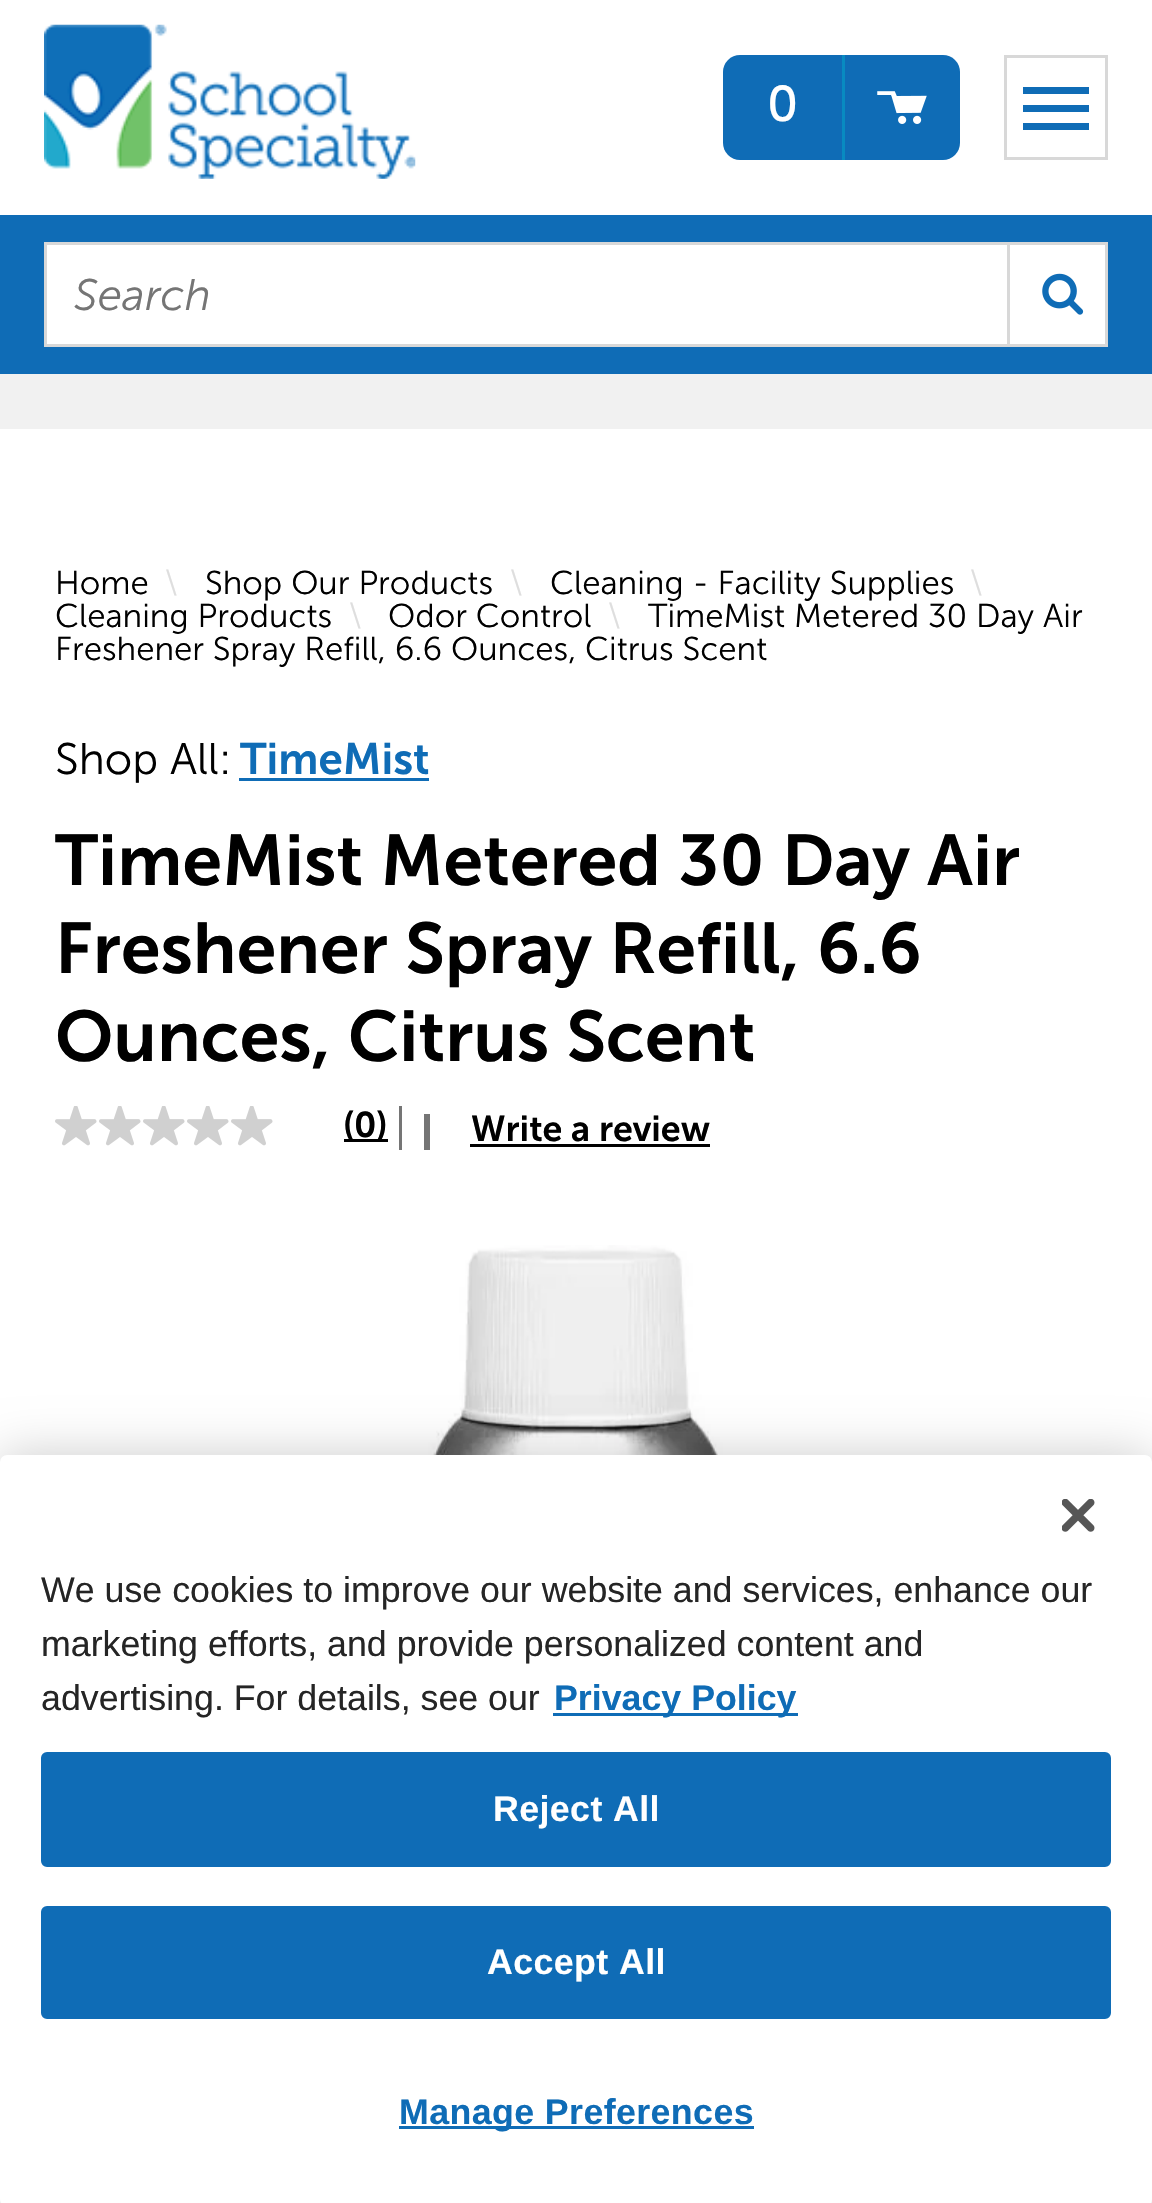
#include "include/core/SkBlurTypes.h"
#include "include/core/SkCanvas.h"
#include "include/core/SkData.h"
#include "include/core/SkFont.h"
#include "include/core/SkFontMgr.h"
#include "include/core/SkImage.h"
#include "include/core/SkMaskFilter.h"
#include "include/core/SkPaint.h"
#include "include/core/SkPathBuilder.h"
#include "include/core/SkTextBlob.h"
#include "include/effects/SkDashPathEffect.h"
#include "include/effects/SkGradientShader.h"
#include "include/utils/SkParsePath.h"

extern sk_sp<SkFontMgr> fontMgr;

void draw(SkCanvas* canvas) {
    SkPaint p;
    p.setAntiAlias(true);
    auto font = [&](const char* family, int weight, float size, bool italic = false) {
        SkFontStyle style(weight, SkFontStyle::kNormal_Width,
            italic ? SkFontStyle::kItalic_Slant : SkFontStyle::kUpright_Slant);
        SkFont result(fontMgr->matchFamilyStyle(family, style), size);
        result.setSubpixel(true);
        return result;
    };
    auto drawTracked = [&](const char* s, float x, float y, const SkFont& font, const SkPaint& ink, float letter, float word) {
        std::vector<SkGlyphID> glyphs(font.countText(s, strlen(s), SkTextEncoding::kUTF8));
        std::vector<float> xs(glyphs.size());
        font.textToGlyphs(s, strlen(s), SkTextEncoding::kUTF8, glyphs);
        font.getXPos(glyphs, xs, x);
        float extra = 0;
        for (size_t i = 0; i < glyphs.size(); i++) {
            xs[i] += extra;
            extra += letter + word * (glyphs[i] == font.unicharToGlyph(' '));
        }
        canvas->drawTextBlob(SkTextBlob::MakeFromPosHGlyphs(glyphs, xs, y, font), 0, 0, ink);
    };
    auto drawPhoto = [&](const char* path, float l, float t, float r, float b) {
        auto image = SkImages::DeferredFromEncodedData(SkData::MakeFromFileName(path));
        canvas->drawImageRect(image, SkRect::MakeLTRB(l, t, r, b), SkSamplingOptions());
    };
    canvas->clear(0xFFF1F1F1);
    p.setColor(0xFFFFFFFF);
    canvas->drawRect(SkRect::MakeLTRB(0, 0, 1152, 215), p);
    drawPhoto("media/1.png", 44, 24, 416, 179);
    p.setColor(0xFF0F6CB6);
    canvas->drawRoundRect(SkRect::MakeLTRB(723, 55, 960, 160), 17, 17, p);
    p.setColor(0xFF088BC1);
    canvas->drawRect(SkRect::MakeLTRB(842, 55, 845, 160), p);
    auto font1 = font("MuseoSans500", 400, 50);
    p.setColor(0xFFFFFFFF);
    canvas->drawString("0", 767, 121, font1, p);
    drawPhoto("media/2.png", 877, 91, 927, 124);
    p.setStyle(SkPaint::kStroke_Style);
    p.setStrokeWidth(3);
    p.setColor(0xFFD8D8D8);
    canvas->drawRect(SkRect::MakeLTRB(1005.5f, 56.5f, 1106.5f, 158.5f), p);
    p.setStyle(SkPaint::kFill_Style);
    p.setColor(0xFF0F6CB6);
    canvas->drawPath(SkPathBuilder().moveTo(1023, 87).lineTo(1089, 87).lineTo(1089, 94).lineTo(1023, 94).close().moveTo(1023, 105).lineTo(1089, 105).lineTo(1089, 112).lineTo(1023, 112).close().moveTo(1023, 123).lineTo(1089, 123).lineTo(1089, 130).lineTo(1023, 130).close().detach(), p);
    canvas->drawRect(SkRect::MakeLTRB(0, 215, 1152, 374), p);
    p.setColor(0xFFFFFFFF);
    canvas->drawRect(SkRect::MakeLTRB(45.5f, 243.5f, 1106.5f, 345.5f), p);
    p.setStyle(SkPaint::kStroke_Style);
    p.setColor(0xFFD8D8D8);
    canvas->drawRect(SkRect::MakeLTRB(45.5f, 243.5f, 1106.5f, 345.5f), p);
    auto font2 = font("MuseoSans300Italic", 400, 44);
    p.setStyle(SkPaint::kFill_Style);
    p.setColor(0xFF757575);
    canvas->drawString("Search", 74, 310, font2, p);
    p.setColor(0xFFD8D8D8);
    canvas->drawRect(SkRect::MakeLTRB(1007, 245, 1010, 344), p);
    drawPhoto("media/3.png", 1042, 273, 1084, 315);
    p.setColor(0xFFFFFFFF);
    canvas->drawRect(SkRect::MakeLTRB(0, 429, 1152, 2203), p);
    auto font3 = font("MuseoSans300", 400, 33);
    p.setColor(0xFF000000);
    canvas->drawString("Home", 55, 594, font3, p);
    p.setColor(0xFFDEDEDE);
    canvas->drawString("\\", 165, 594, font3, p);
    p.setColor(0xFF000000);
    canvas->drawString("Shop Our Products", 205, 594, font3, p);
    p.setColor(0xFFDEDEDE);
    canvas->drawString("\\", 510, 594, font3, p);
    p.setColor(0xFF000000);
    canvas->drawString("Cleaning - Facility Supplies", 550, 594, font3, p);
    p.setColor(0xFFDEDEDE);
    canvas->drawString("\\", 970, 594, font3, p);
    p.setColor(0xFF000000);
    canvas->drawString("Cleaning Products", 55, 627, font3, p);
    p.setColor(0xFFDEDEDE);
    canvas->drawString("\\", 349, 627, font3, p);
    p.setColor(0xFF000000);
    canvas->drawString("Odor Control", 388, 627, font3, p);
    p.setColor(0xFFDEDEDE);
    canvas->drawString("\\", 608, 627, font3, p);
    p.setColor(0xFF000000);
    canvas->drawString("TimeMist Metered 30 Day Air", 648, 627, font3, p);
    canvas->drawString("Freshener Spray Refill, 6.6 Ounces, Citrus Scent", 55, 660, font3, p);
    auto font4 = font("MuseoSans300", 400, 44);
    canvas->drawString("Shop All:", 55, 774, font4, p);
    auto font5 = font("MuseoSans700", 400, 44);
    p.setColor(0xFF0F6CB6);
    canvas->drawString("TimeMist", 240, 774, font5, p);
    canvas->drawRect(SkRect::MakeLTRB(239, 778, 429, 781), p);
    auto font6 = font("MuseoSans700", 400, 71.5f);
    p.setColor(0xFF000000);
    {
        const struct { const char* s; float x, y; } items[] = {
            {"TimeMist Metered 30 Day Air", 55, 885},
            {"Freshener Spray Refill, 6.6", 55, 973},
            {"Ounces, Citrus Scent", 55, 1061},
        };
        for (auto [s, x, y] : items) {
            canvas->drawString(s, x, y, font6, p);
        }
    }
    p.setColor(0xFF757575);
    canvas->drawRect(SkRect::MakeLTRB(399, 1106, 402, 1150), p);
    drawPhoto("media/4.png", 55, 1106, 97, 1146);
    drawPhoto("media/4.png", 99, 1106, 141, 1146);
    drawPhoto("media/4.png", 143, 1106, 185, 1146);
    drawPhoto("media/4.png", 187, 1106, 229, 1146);
    drawPhoto("media/4.png", 231, 1106, 273, 1146);
    p.setColor(0xFF000000);
    canvas->drawRect(SkRect::MakeLTRB(344, 1139, 388, 1142), p);
    auto font7 = font("MuseoSans700", 400, 35.75f);
    canvas->drawString("(0)", 343, 1137, font7, p);
    p.setColor(0xFF757575);
    canvas->drawRect(SkRect::MakeLTRB(424, 1114, 430, 1150), p);
    p.setColor(0xFF000000);
    canvas->drawString("Write a review", 471, 1141, font7, p);
    canvas->drawRect(SkRect::MakeLTRB(470, 1144, 710, 1147), p);
    drawPhoto("media/5.png", 347, 1245, 796, 1455);
    p.setColor(0x33000000);
    p.setMaskFilter(SkMaskFilter::MakeBlur(kNormal_SkBlurStyle, 25));
    canvas->drawRoundRect(SkRect::MakeLTRB(0, 1455, 1152, 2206), 7, 7, p);
    p.setMaskFilter(nullptr);
    p.setColor(0xFFFFFFFF);
    canvas->drawRoundRect(SkRect::MakeLTRB(0, 1455, 1152, 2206), 7, 7, p);
    drawPhoto("media/6.png", 1062, 1499, 1095, 1532);
    auto font8 = font("Liberation Sans", 400, 35.75f);
    p.setColor(0xFF252525);
    {
        const struct { const char* s; float x, y; } items[] = {
            {"We use cookies to improve our website and services, enhance our", 41, 1602},
            {"marketing efforts, and provide personalized content and", 41, 1656},
            {"advertising. For details, see our", 41, 1710},
        };
        for (auto [s, x, y] : items) {
            canvas->drawString(s, x, y, font8, p);
        }
    }
    p.setColor(0xFF0F6CB6);
    canvas->drawRect(SkRect::MakeLTRB(553, 1713, 798, 1716), p);
    auto font9 = font("Liberation Sans", 700, 35.75f);
    canvas->drawString("Privacy Policy", 554, 1710, font9, p);
    canvas->drawRoundRect(SkRect::MakeLTRB(42.5f, 1753.5f, 1109.5f, 1865.5f), 4.5f, 4.5f, p);
    p.setStyle(SkPaint::kStroke_Style);
    canvas->drawRoundRect(SkRect::MakeLTRB(42.5f, 1753.5f, 1109.5f, 1865.5f), 4.5f, 4.5f, p);
    p.setStyle(SkPaint::kFill_Style);
    p.setColor(0xFFFFFFFF);
    drawTracked("Reject All", 493, 1821, font9, p, 0.4f, 0);
    p.setColor(0xFF0F6CB6);
    canvas->drawRoundRect(SkRect::MakeLTRB(42.5f, 1907.5f, 1109.5f, 2017.5f), 4.5f, 4.5f, p);
    p.setStyle(SkPaint::kStroke_Style);
    canvas->drawRoundRect(SkRect::MakeLTRB(42.5f, 1907.5f, 1109.5f, 2017.5f), 4.5f, 4.5f, p);
    p.setStyle(SkPaint::kFill_Style);
    p.setColor(0xFFFFFFFF);
    drawTracked("Accept All", 487, 1974, font9, p, 0.4f, 0);
    p.setColor(0xFF0F6CB6);
    canvas->drawRect(SkRect::MakeLTRB(399, 2126, 754, 2129), p);
    drawTracked("Manage Preferences", 399, 2124, font9, p, 0.4f, 0);
}
